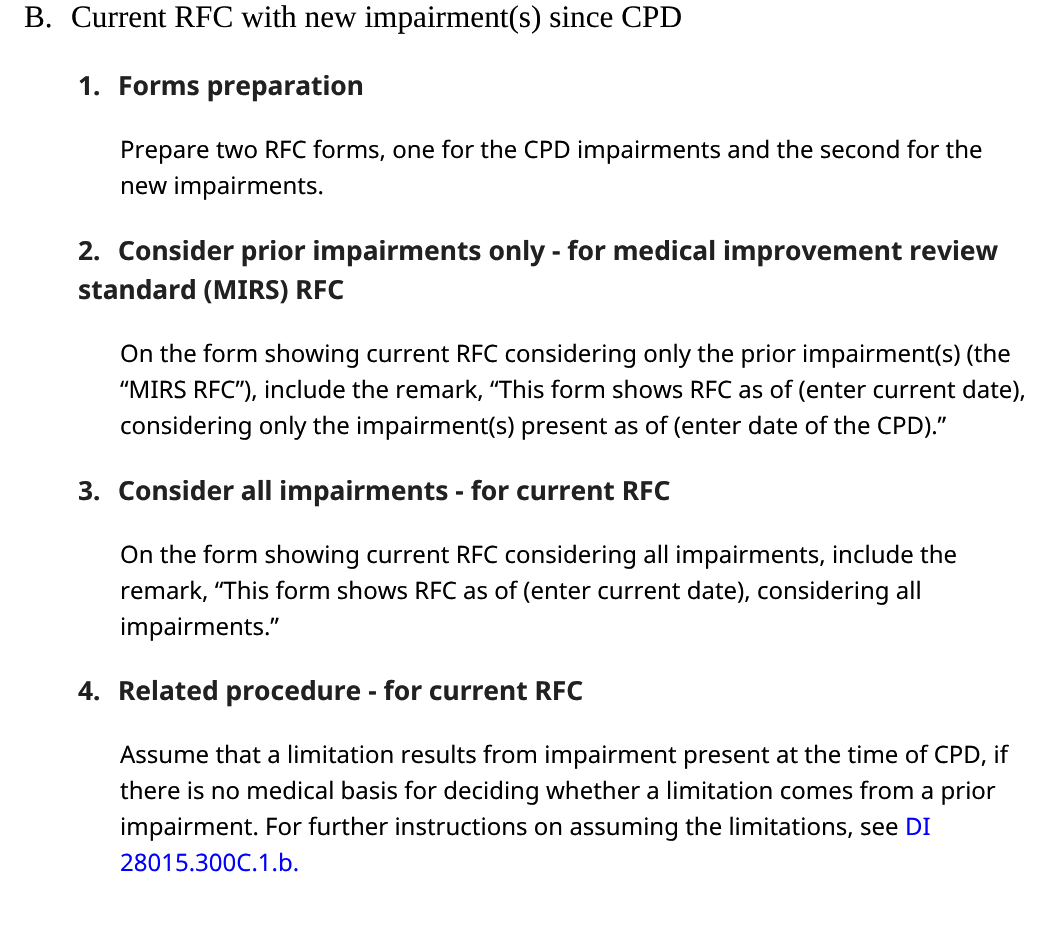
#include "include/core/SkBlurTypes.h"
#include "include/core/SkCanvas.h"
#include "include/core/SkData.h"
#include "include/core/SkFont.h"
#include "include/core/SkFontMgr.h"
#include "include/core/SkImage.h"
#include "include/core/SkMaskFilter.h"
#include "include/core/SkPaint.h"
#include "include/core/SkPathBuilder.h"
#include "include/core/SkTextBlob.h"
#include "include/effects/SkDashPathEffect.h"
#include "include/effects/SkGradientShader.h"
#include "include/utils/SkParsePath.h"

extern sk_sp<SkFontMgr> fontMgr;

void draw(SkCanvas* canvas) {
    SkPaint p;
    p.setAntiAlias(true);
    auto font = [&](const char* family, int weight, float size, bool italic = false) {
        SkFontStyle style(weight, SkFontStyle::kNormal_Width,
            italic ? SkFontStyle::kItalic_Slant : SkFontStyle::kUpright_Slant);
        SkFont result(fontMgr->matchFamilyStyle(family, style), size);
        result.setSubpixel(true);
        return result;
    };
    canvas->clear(0xFFFFFFFF);
    auto font1 = font("Liberation Serif", 400, 31.25f);
    p.setColor(0xFF000000);
    canvas->drawString("B.", 24, 27, font1, p);
    canvas->drawString("Current RFC with new impairment(s) since CPD", 71, 27, font1, p);
    auto font2 = font("Noto Sans", 700, 26.4f);
    p.setColor(0xFF212121);
    canvas->drawString("1.", 78, 95, font2, p);
    canvas->drawString("Forms preparation", 118, 95, font2, p);
    auto font3 = font("Noto Sans", 400, 24);
    p.setColor(0xFF000000);
    canvas->drawString("Prepare two RFC forms, one for the CPD impairments and the second for the", 120, 158, font3, p);
    canvas->drawString("new impairments.", 120, 194, font3, p);
    p.setColor(0xFF212121);
    {
        const struct { const char* s; float x, y; } items[] = {
            {"2.", 78, 260},
            {"Consider prior impairments only - for medical improvement review", 118, 260},
            {"standard (MIRS) RFC", 78, 299},
        };
        for (auto [s, x, y] : items) {
            canvas->drawString(s, x, y, font2, p);
        }
    }
    p.setColor(0xFF000000);
    {
        const struct { const char* s; float x, y; } items[] = {
            {"On the form showing current RFC considering only the prior impairment(s) (the", 120, 362},
            {"“MIRS RFC”), include the remark, “This form shows RFC as of (enter current date),", 120, 398},
            {"considering only the impairment(s) present as of (enter date of the CPD).”", 120, 434},
        };
        for (auto [s, x, y] : items) {
            canvas->drawString(s, x, y, font3, p);
        }
    }
    p.setColor(0xFF212121);
    canvas->drawString("3.", 78, 500, font2, p);
    canvas->drawString("Consider all impairments - for current RFC", 118, 500, font2, p);
    p.setColor(0xFF000000);
    {
        const struct { const char* s; float x, y; } items[] = {
            {"On the form showing current RFC considering all impairments, include the", 120, 563},
            {"remark, “This form shows RFC as of (enter current date), considering all", 120, 599},
            {"impairments.”", 120, 635},
        };
        for (auto [s, x, y] : items) {
            canvas->drawString(s, x, y, font3, p);
        }
    }
    p.setColor(0xFF212121);
    canvas->drawString("4.", 78, 700, font2, p);
    canvas->drawString("Related procedure - for current RFC", 118, 700, font2, p);
    p.setColor(0xFF000000);
    {
        const struct { const char* s; float x, y; } items[] = {
            {"Assume that a limitation results from impairment present at the time of CPD, if", 120, 763},
            {"there is no medical basis for deciding whether a limitation comes from a prior", 120, 799},
            {"impairment. For further instructions on assuming the limitations, see", 120, 835},
        };
        for (auto [s, x, y] : items) {
            canvas->drawString(s, x, y, font3, p);
        }
    }
    p.setColor(0xFF0000FF);
    canvas->drawString("DI", 905, 835, font3, p);
    canvas->drawString("28015.300C.1.b.", 120, 871, font3, p);
}
